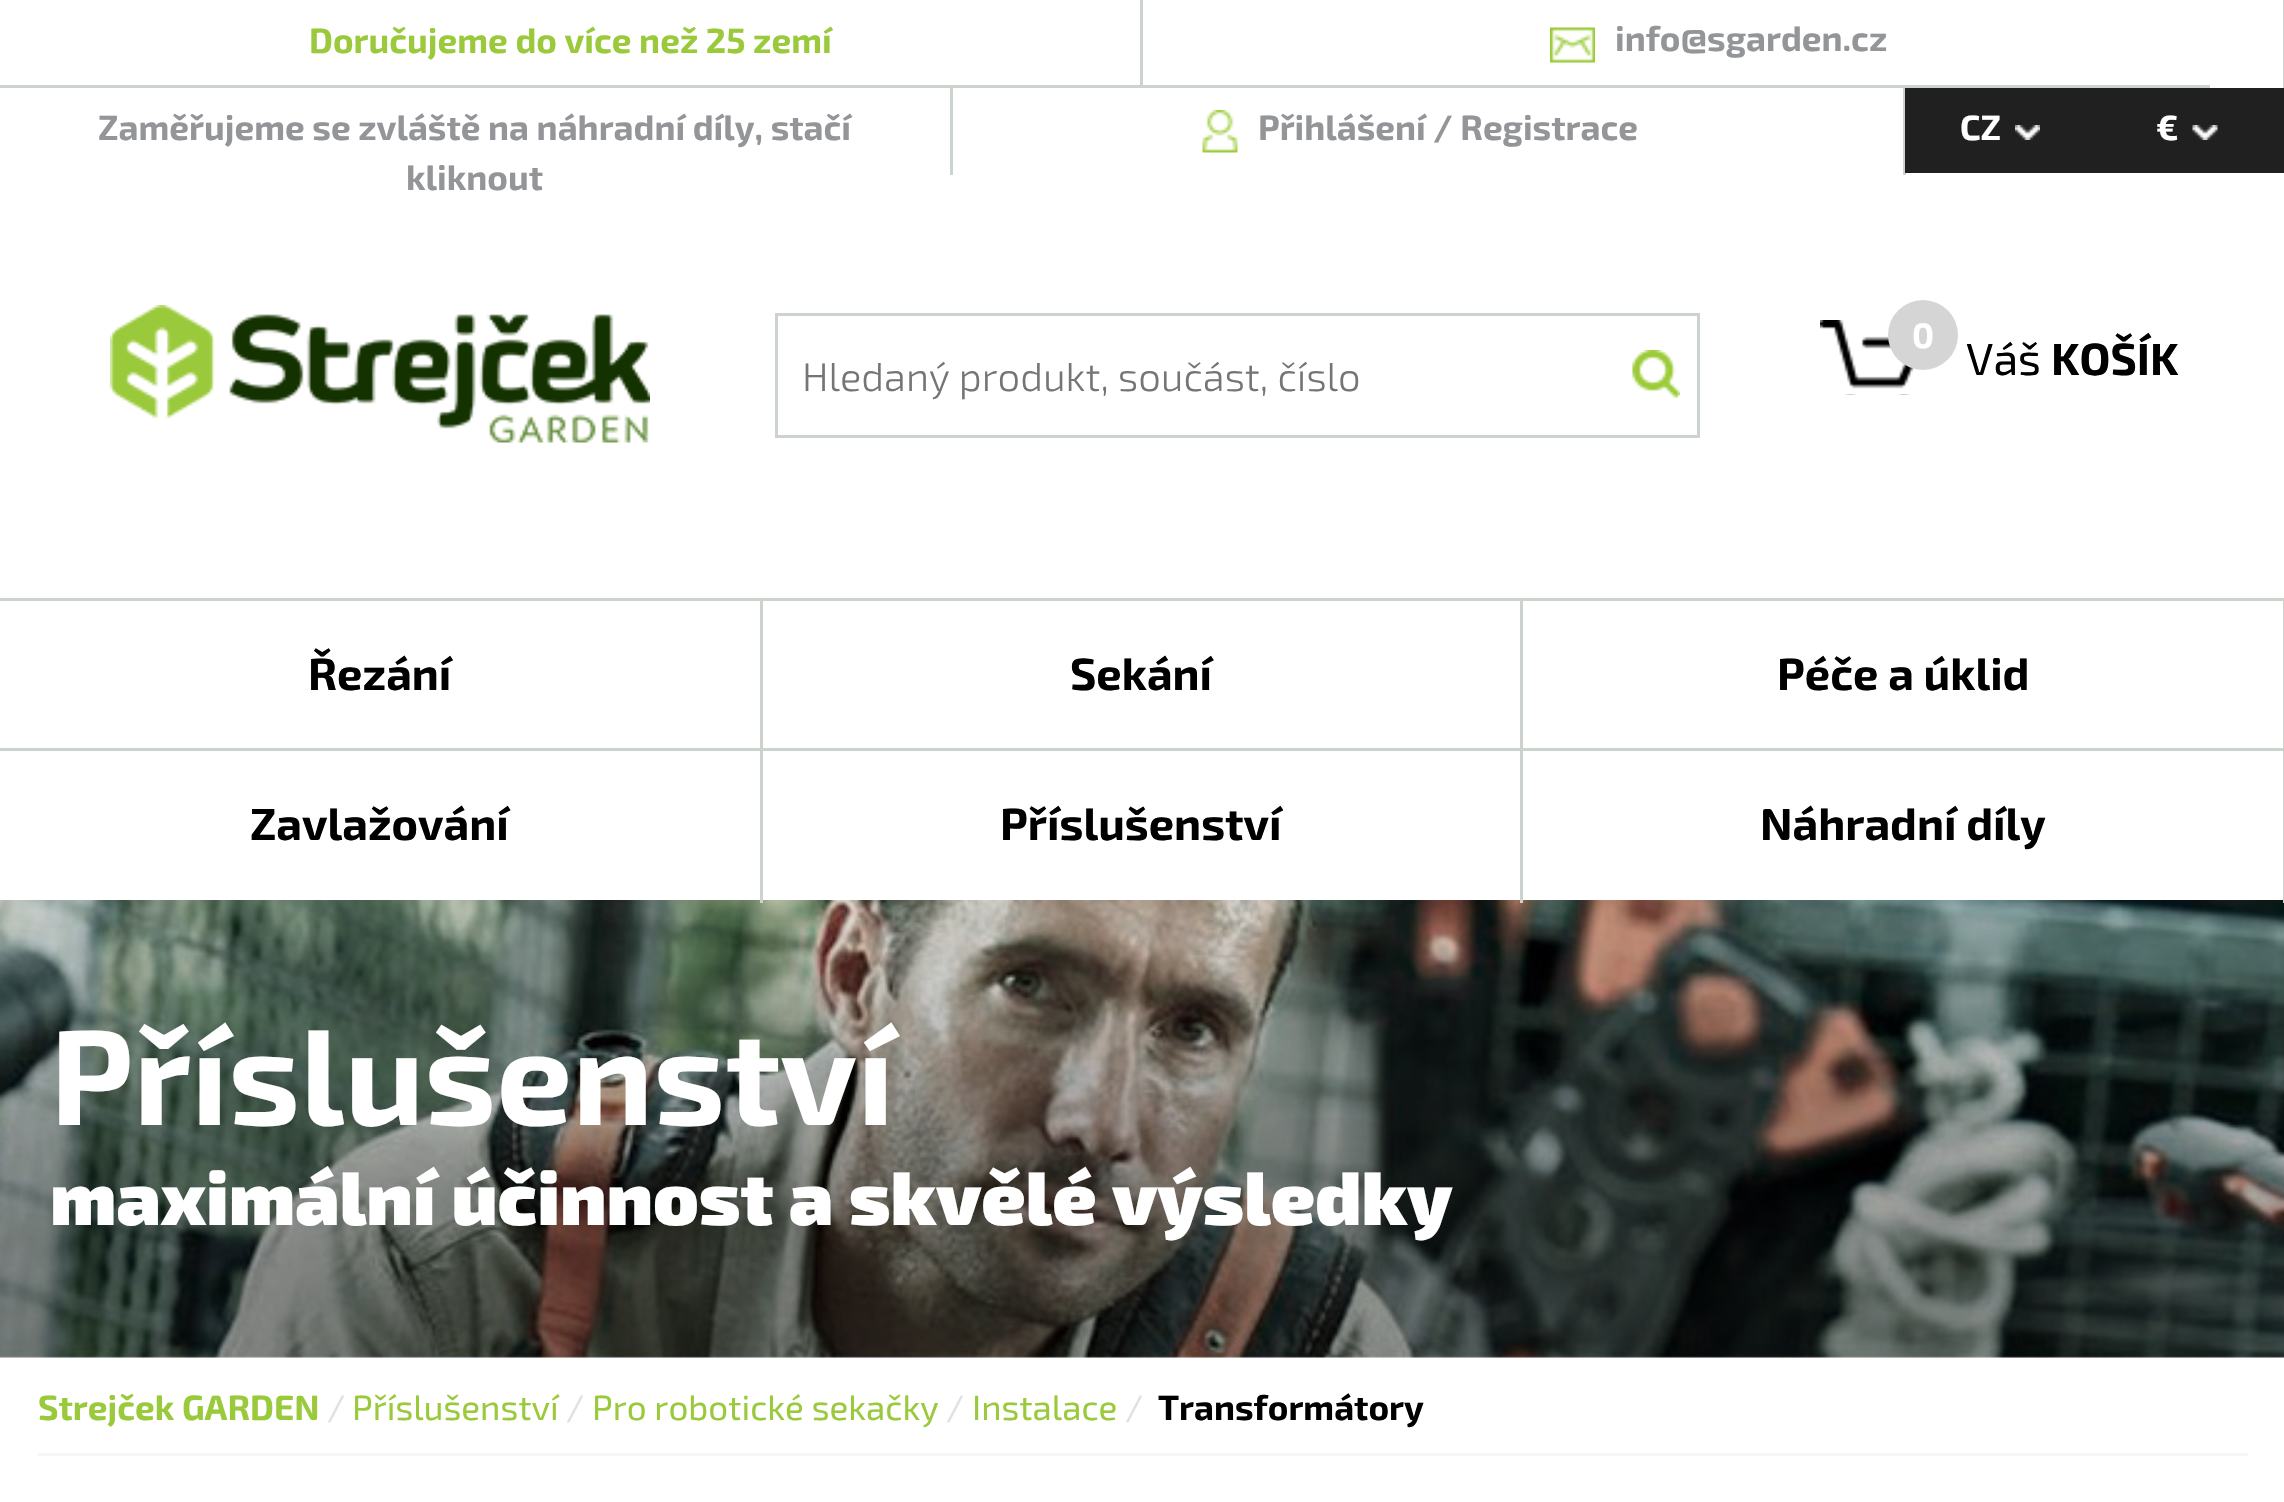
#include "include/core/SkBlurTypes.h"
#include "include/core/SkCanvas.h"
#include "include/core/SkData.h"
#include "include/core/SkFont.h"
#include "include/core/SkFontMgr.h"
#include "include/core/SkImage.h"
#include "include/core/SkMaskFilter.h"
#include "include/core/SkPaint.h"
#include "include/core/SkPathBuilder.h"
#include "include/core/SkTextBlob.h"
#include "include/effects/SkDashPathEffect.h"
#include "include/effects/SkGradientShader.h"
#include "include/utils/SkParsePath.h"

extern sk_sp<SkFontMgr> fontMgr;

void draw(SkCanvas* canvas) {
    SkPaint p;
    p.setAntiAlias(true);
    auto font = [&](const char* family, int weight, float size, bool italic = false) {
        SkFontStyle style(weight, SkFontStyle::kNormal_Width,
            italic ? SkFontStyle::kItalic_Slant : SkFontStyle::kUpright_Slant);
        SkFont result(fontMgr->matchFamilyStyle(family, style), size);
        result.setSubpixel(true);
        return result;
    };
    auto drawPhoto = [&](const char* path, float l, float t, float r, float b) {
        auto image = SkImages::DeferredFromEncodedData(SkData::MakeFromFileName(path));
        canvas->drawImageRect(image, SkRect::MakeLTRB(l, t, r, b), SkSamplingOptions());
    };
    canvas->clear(0xFFFFFFFF);
    p.setColor(0xFFCCD3CC);
    canvas->drawRect(SkRect::MakeLTRB(0, 85, 2210, 88), p);
    canvas->drawRect(SkRect::MakeLTRB(1140, 0, 1143, 88), p);
    auto font1 = font("Exo 2", 700, 35);
    p.setColor(0xFF9ACA3C);
    canvas->drawString("Doručujeme do více než 25 zemí", 309, 53, font1, p);
    p.setColor(0xFFCCD3CC);
    canvas->drawRect(SkRect::MakeLTRB(2283, 0, 2284, 88), p);
    drawPhoto("media/1.png", 1550, 27, 1595, 63);
    p.setColor(0xFF939598);
    canvas->drawString("info@sgarden.cz", 1615, 51, font1, p);
    p.setColor(0xFFCCD3CC);
    canvas->drawRect(SkRect::MakeLTRB(950, 88, 953, 175), p);
    p.setColor(0xFF939598);
    canvas->drawString("Zaměřujeme se zvláště na náhradní díly, stačí", 98, 140, font1, p);
    canvas->drawString("kliknout", 406, 190, font1, p);
    p.setColor(0xFFCCD3CC);
    canvas->drawRect(SkRect::MakeLTRB(1903, 88, 1906, 175), p);
    drawPhoto("media/2.png", 1202, 110, 1238, 153);
    p.setColor(0xFF939598);
    canvas->drawString("Přihlášení / Registrace", 1258, 140, font1, p);
    p.setColor(0xFF202020);
    canvas->drawRect(SkRect::MakeLTRB(1905, 88, 2284, 173), p);
    p.setColor(0xFFFFFFFF);
    canvas->drawString("CZ", 1960, 140, font1, p);
    drawPhoto("media/3.png", 2015, 125, 2040, 140);
    canvas->drawString("€", 2156, 140, font1, p);
    drawPhoto("media/4.png", 2192, 125, 2218, 140);
    drawPhoto("media/5.png", 110, 305, 650, 443);
    drawPhoto("media/6.png", 1820, 320, 1914, 395);
    p.setColor(0xFFD5D5D5);
    canvas->drawCircle(1923, 335, 35, p);
    p.setColor(0xFFFFFFFF);
    canvas->drawString("0", 1912, 348, font1, p);
    auto font2 = font("Exo 2", 400, 45);
    p.setColor(0xFF000000);
    canvas->drawString("Váš", 1966, 375, font2, p);
    auto font3 = font("Exo 2", 700, 45);
    canvas->drawString("KOŠÍK", 2051, 375, font3, p);
    p.setStyle(SkPaint::kStroke_Style);
    p.setStrokeWidth(3);
    p.setColor(0xFFCCD3CC);
    canvas->drawRect(SkRect::MakeLTRB(776.5f, 314.5f, 1698.5f, 436.5f), p);
    auto font4 = font("Exo 2", 300, 40);
    p.setStyle(SkPaint::kFill_Style);
    p.setColor(0xFF757575);
    canvas->drawString("Hledaný produkt, součást, číslo", 802, 391, font4, p);
    drawPhoto("media/7.png", 1632, 350, 1680, 398);
    p.setColor(0xFFCCD3CC);
    canvas->drawRect(SkRect::MakeLTRB(0, 598, 2284, 601), p);
    canvas->drawRect(SkRect::MakeLTRB(760, 598, 763, 753), p);
    p.setColor(0xFF000000);
    canvas->drawString("Řezání", 308, 690, font3, p);
    p.setColor(0xFFCCD3CC);
    canvas->drawRect(SkRect::MakeLTRB(1520, 598, 1523, 753), p);
    p.setColor(0xFF000000);
    canvas->drawString("Sekání", 1070, 690, font3, p);
    p.setColor(0xFFCCD3CC);
    canvas->drawRect(SkRect::MakeLTRB(2283, 598, 2284, 753), p);
    p.setColor(0xFF000000);
    canvas->drawString("Péče a úklid", 1777, 690, font3, p);
    p.setColor(0xFFCCD3CC);
    canvas->drawRect(SkRect::MakeLTRB(0, 748, 2284, 751), p);
    drawPhoto("media/8.png", 0, 900, 2284, 1358);
    canvas->drawRect(SkRect::MakeLTRB(760, 748, 763, 903), p);
    p.setColor(0xFF000000);
    canvas->drawString("Zavlažování", 250, 840, font3, p);
    p.setColor(0xFFCCD3CC);
    canvas->drawRect(SkRect::MakeLTRB(1520, 748, 1523, 903), p);
    p.setColor(0xFF000000);
    canvas->drawString("Příslušenství", 1000, 840, font3, p);
    p.setColor(0xFFCCD3CC);
    canvas->drawRect(SkRect::MakeLTRB(2283, 748, 2284, 903), p);
    p.setColor(0xFF000000);
    canvas->drawString("Náhradní díly", 1760, 840, font3, p);
    auto font5 = font("Exo 2", 700, 135);
    p.setColor(0xFFFFFFFF);
    canvas->drawString("Příslušenství", 50, 1125, font5, p);
    auto font6 = font("Exo 2", 900, 75);
    canvas->drawString("maximální účinnost a skvělé výsledky", 50, 1225, font6, p);
    p.setColor(0xFF9ACA3C);
    canvas->drawString("Strejček GARDEN", 38, 1420, font1, p);
    auto font7 = font("Exo 2", 400, 35);
    p.setColor(0xFFE1E1E1);
    canvas->drawString("/", 327, 1420, font7, p);
    p.setColor(0xFF9ACA3C);
    canvas->drawString("Příslušenství", 352, 1420, font7, p);
    p.setColor(0xFFE1E1E1);
    canvas->drawString("/", 566, 1420, font7, p);
    p.setColor(0xFF9ACA3C);
    canvas->drawString("Pro robotické sekačky", 592, 1420, font7, p);
    p.setColor(0xFFE1E1E1);
    canvas->drawString("/", 946, 1420, font7, p);
    p.setColor(0xFF9ACA3C);
    canvas->drawString("Instalace", 972, 1420, font7, p);
    p.setColor(0xFFE1E1E1);
    canvas->drawString("/", 1125, 1420, font7, p);
    p.setColor(0xFF000000);
    canvas->drawString("Transformátory", 1158, 1420, font1, p);
    p.setColor(0xFFF6F6F6);
    canvas->drawRect(SkRect::MakeLTRB(38, 1453, 2248, 1456), p);
}
